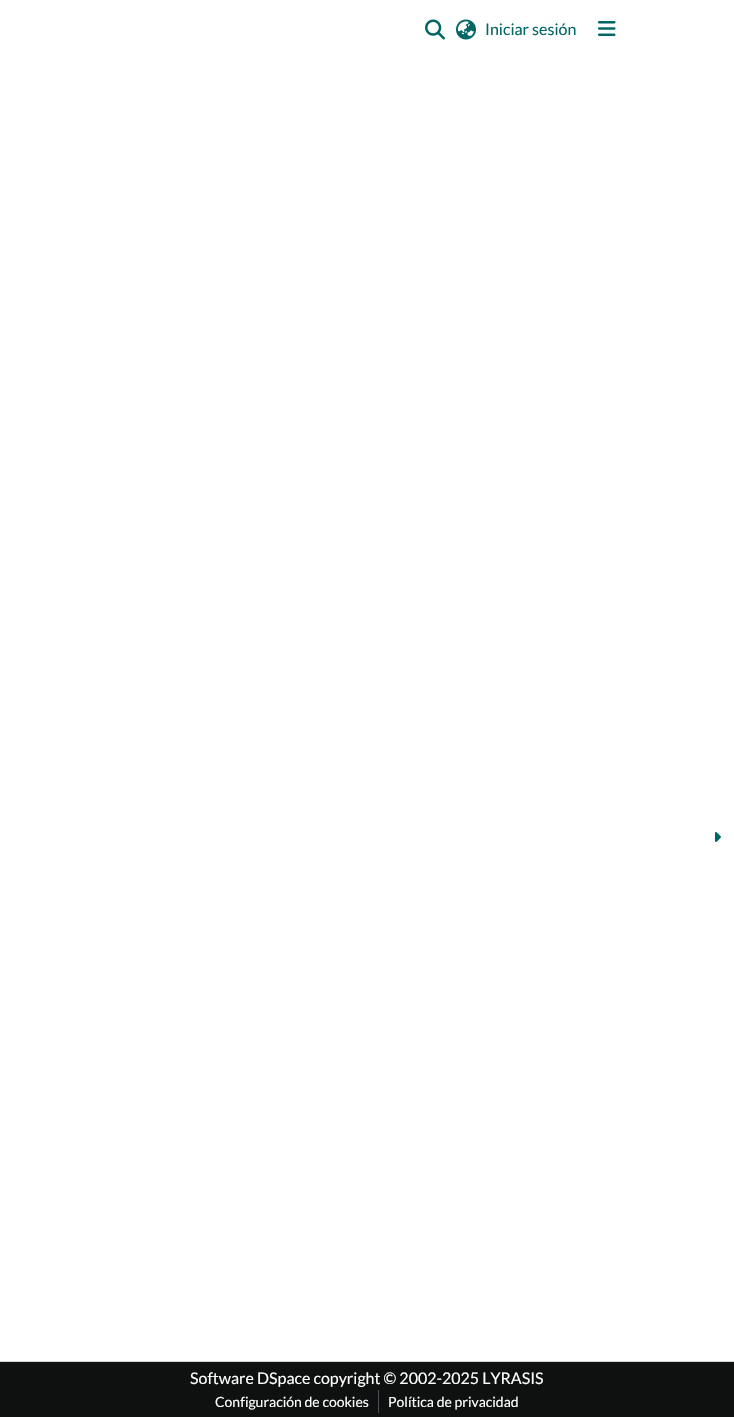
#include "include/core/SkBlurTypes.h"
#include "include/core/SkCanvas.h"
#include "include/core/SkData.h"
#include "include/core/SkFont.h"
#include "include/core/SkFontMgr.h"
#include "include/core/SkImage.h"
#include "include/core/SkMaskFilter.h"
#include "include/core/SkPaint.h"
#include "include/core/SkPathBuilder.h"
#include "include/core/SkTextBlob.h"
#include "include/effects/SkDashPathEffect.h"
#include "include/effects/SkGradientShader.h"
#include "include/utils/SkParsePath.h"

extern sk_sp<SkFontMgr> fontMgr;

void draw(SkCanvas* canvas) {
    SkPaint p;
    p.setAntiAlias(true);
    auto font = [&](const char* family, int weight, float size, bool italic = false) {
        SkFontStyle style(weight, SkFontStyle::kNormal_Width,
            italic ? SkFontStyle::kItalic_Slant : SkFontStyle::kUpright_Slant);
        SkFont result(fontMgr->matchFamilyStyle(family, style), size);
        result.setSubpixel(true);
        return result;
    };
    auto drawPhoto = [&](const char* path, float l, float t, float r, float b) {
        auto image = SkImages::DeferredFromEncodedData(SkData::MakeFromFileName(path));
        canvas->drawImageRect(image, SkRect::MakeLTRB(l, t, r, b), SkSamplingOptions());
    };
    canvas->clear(0xFFFFFFFF);
    drawPhoto("media/1.png", 425, 19, 445, 40);
    drawPhoto("media/2.png", 456, 19, 476, 40);
    auto font1 = font("Lato", 400, 16);
    p.setColor(0xFF006666);
    canvas->drawString("Iniciar sesión", 485, 35, font1, p);
    drawPhoto("media/3.png", 598, 21, 616, 36);
    p.setColor(0xFF0E1110);
    canvas->drawRect(SkRect::MakeLTRB(0, 1362, 734, 1417), p);
    p.setColor(0xFFCED4DA);
    canvas->drawRect(SkRect::MakeLTRB(0, 1361, 734, 1362), p);
    p.setColor(0xFFFFFFFF);
    canvas->drawString("Software DSpace copyright © 2002-2025 LYRASIS", 190, 1384, font1, p);
    auto font2 = font("Lato", 400, 14);
    canvas->drawString("Configuración de cookies", 215, 1407, font2, p);
    p.setColor(0xFF495057);
    canvas->drawRect(SkRect::MakeLTRB(378, 1390, 379, 1413), p);
    p.setColor(0xFFFFFFFF);
    canvas->drawString("Política de privacidad", 388, 1407, font2, p);
    drawPhoto("media/4.png", 715, 832, 721, 842);
}
